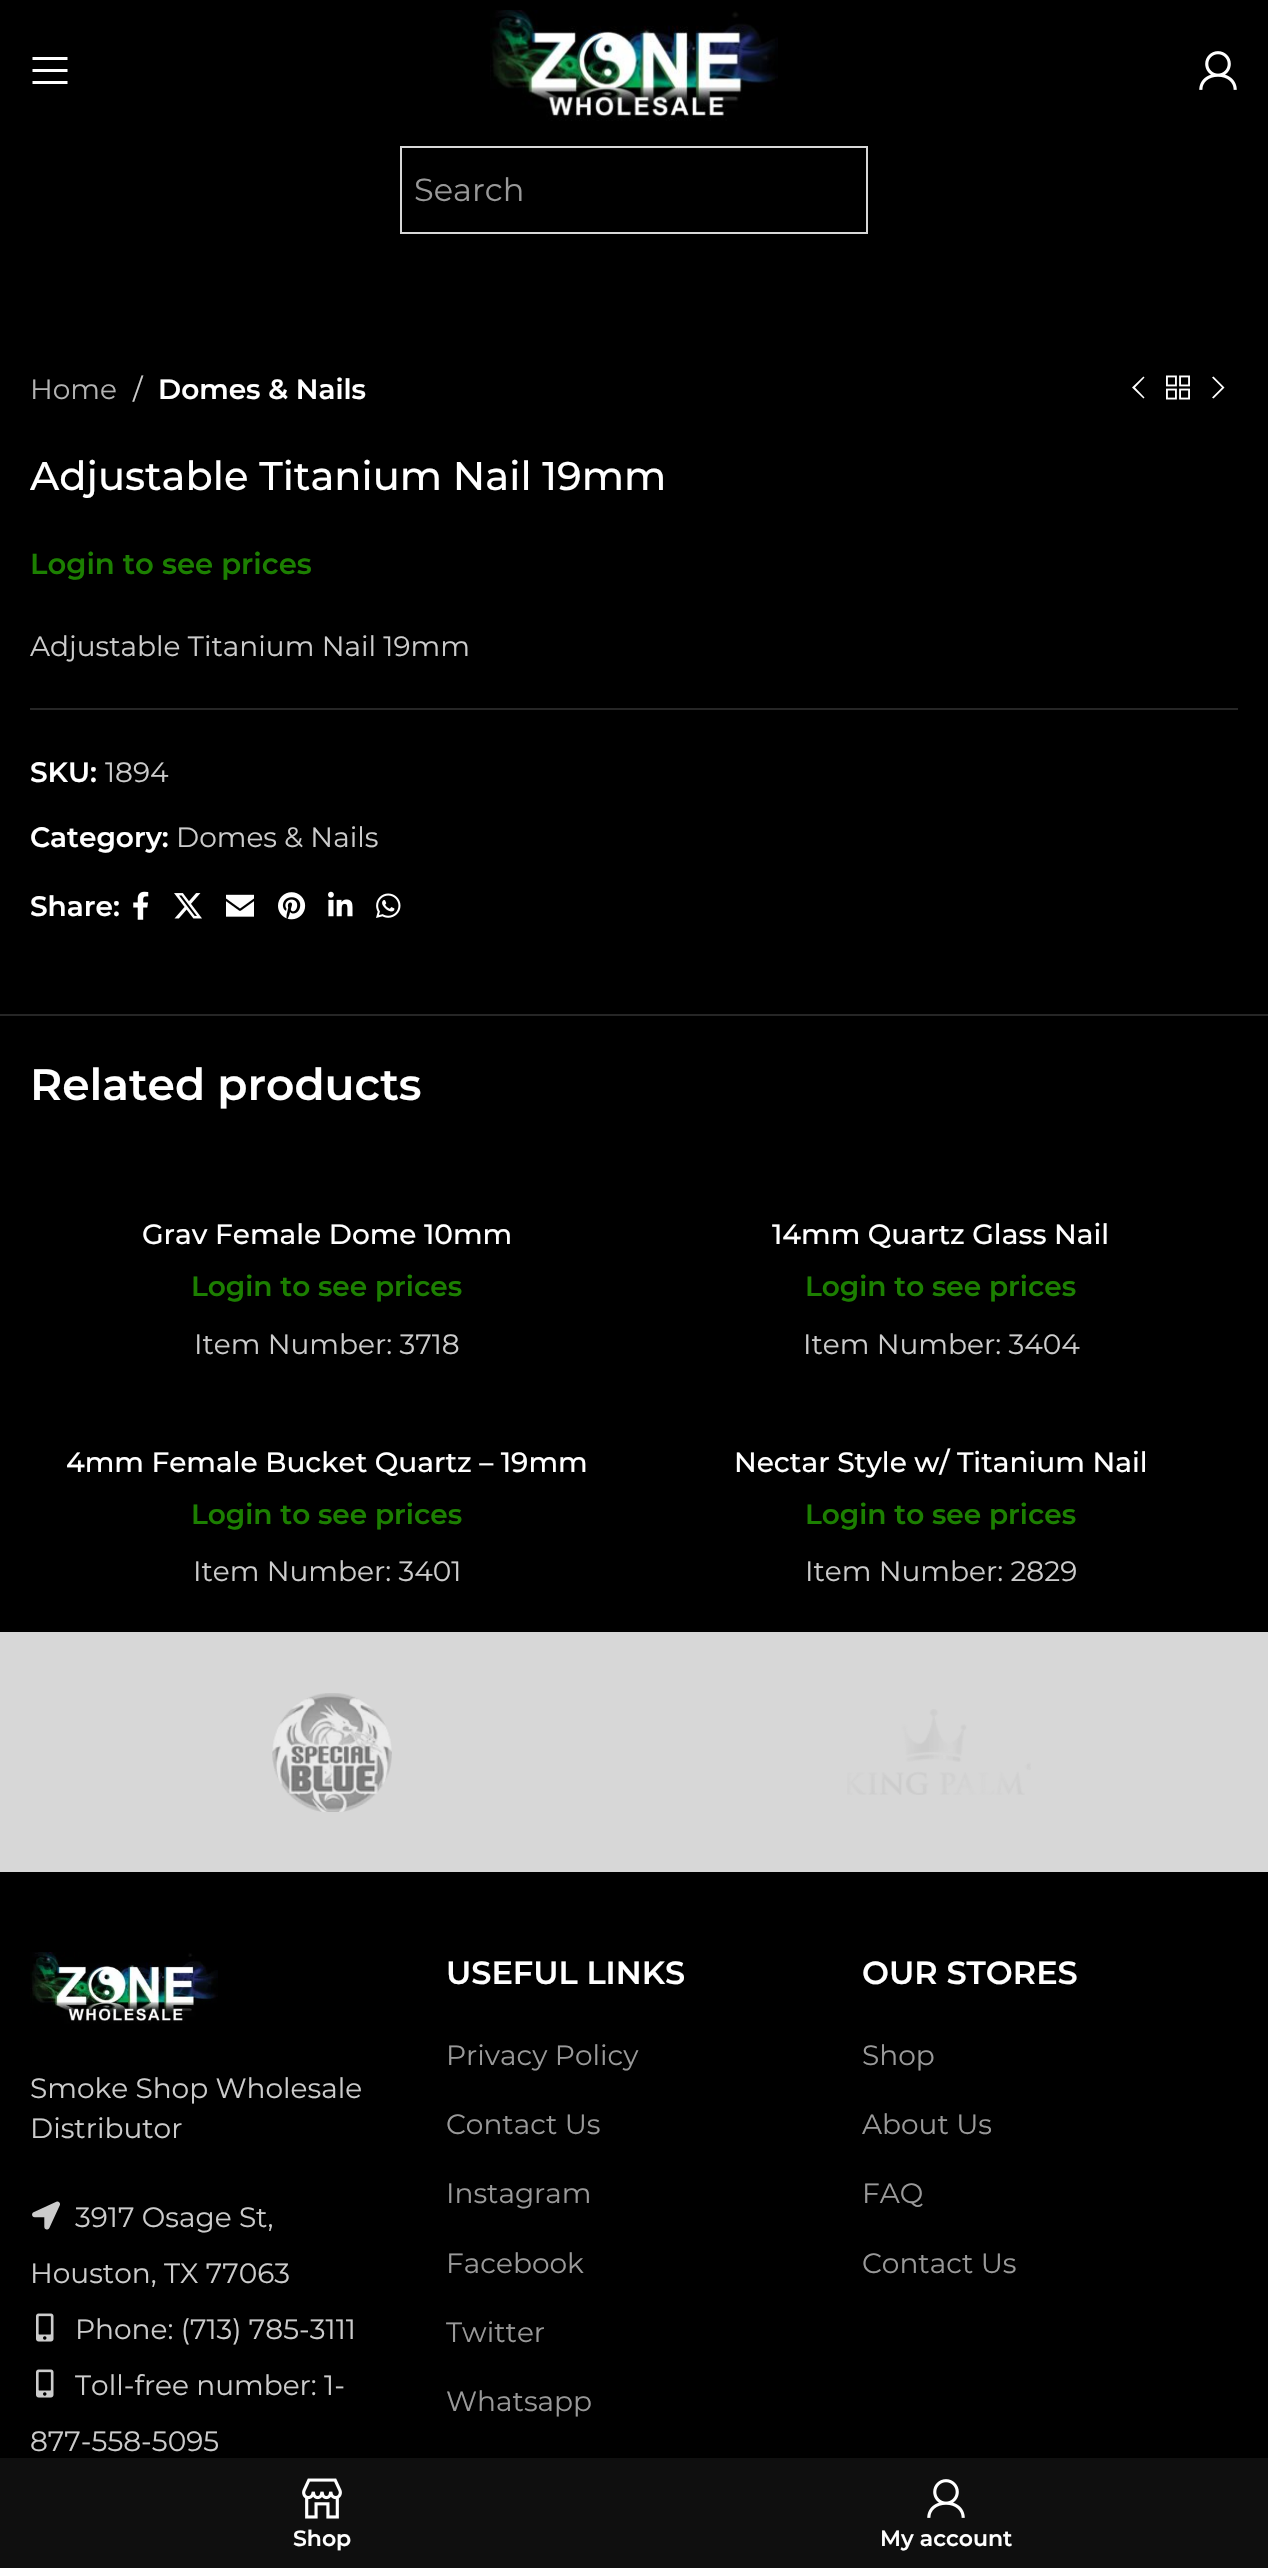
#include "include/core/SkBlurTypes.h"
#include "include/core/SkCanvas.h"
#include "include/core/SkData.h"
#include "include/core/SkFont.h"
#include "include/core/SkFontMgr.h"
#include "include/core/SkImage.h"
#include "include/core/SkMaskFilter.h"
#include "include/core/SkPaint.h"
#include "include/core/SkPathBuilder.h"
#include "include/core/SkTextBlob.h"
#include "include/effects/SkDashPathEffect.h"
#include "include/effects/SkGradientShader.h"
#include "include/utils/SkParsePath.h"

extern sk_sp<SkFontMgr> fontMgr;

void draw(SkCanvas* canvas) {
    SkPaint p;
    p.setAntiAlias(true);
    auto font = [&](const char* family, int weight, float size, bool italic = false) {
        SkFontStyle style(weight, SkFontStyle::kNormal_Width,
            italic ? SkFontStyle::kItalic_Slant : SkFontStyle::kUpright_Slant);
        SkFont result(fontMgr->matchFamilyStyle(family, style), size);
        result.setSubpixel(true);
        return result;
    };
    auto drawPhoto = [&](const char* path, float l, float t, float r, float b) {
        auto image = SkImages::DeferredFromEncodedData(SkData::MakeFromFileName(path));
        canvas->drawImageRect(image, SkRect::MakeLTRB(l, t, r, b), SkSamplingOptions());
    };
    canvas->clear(0xFF000000);
    p.setColor(0xFFFFFFFF);
    canvas->drawPath(SkPathBuilder().moveTo(32.5f, 60).lineTo(67.5f, 60).lineTo(67.5f, 57).lineTo(32.5f, 57).close().moveTo(32.5f, 72).lineTo(67.5f, 72).lineTo(67.5f, 69).lineTo(32.5f, 69).close().moveTo(32.5f, 84).lineTo(67.5f, 84).lineTo(67.5f, 81).lineTo(32.5f, 81).close().detach(), p);
    drawPhoto("media/1.png", 490, 10, 778, 121);
    drawPhoto("media/2.png", 1199, 51, 1237, 90);
    p.setStyle(SkPaint::kStroke_Style);
    p.setStrokeWidth(2);
    p.setColor(0xFFD8D8D8);
    canvas->drawRect(SkRect::MakeLTRB(401, 147, 867, 233), p);
    auto font1 = font("Montserrat", 400, 32);
    p.setStyle(SkPaint::kFill_Style);
    p.setColor(0xFF999999);
    canvas->drawString("Search", 414, 201, font1, p);
    auto font2 = font("Montserrat", 400, 28);
    p.setColor(0xFFB3B3B3);
    canvas->drawString("Home", 30, 399, font2, p);
    p.setColor(0xFFCCCCCC);
    canvas->drawString("/", 133, 399, font2, p);
    auto font3 = font("Montserrat", 600, 28);
    p.setColor(0xFFFFFFFF);
    canvas->drawString("Domes & Nails", 158, 399, font3, p);
    canvas->drawPath(SkPathBuilder().moveTo(1144.5f, 377.5f).lineTo(1143.5f, 376.5f).lineTo(1132, 387.5f).lineTo(1143.5f, 398.5f).lineTo(1144.5f, 397.5f).lineTo(1135, 387.5f).close().detach(), p);
    drawPhoto("media/3.png", 1166, 375, 1190, 400);
    canvas->drawPath(SkPathBuilder().moveTo(1212, 377.5f).lineTo(1222, 387.5f).lineTo(1212, 397.5f).lineTo(1213.5f, 398.5f).lineTo(1224.5f, 387.5f).lineTo(1213.5f, 376.5f).close().detach(), p);
    auto font4 = font("Montserrat", 500, 40);
    canvas->drawString("Adjustable Titanium Nail 19mm", 30, 490, font4, p);
    auto font5 = font("Montserrat", 600, 29.1f);
    p.setColor(0xFF1C7F01);
    canvas->drawString("Login to see prices", 30, 574, font5, p);
    p.setColor(0xFFCCCCCC);
    canvas->drawString("Adjustable Titanium Nail 19mm", 30, 656, font2, p);
    p.setColor(0xFF262626);
    canvas->drawRect(SkRect::MakeLTRB(30, 708, 1238, 710), p);
    p.setColor(0xFFFFFFFF);
    canvas->drawString("SKU:", 30, 782, font3, p);
    p.setColor(0xFFCCCCCC);
    canvas->drawString("1894", 105, 782, font2, p);
    p.setColor(0xFFFFFFFF);
    canvas->drawString("Category:", 30, 847, font3, p);
    p.setColor(0xFFCCCCCC);
    canvas->drawString("Domes & Nails", 176, 847, font2, p);
    p.setColor(0xFFFFFFFF);
    canvas->drawString("Share:", 30, 916, font3, p);
    drawPhoto("media/4.png", 133, 891, 149, 920);
    drawPhoto("media/5.png", 174, 893, 202, 919);
    drawPhoto("media/6.png", 226, 894, 254, 917);
    drawPhoto("media/7.png", 278, 892, 306, 920);
    drawPhoto("media/8.png", 328, 891, 353, 917);
    drawPhoto("media/9.png", 376, 893, 401, 918);
    p.setColor(0xFF262626);
    canvas->drawRect(SkRect::MakeLTRB(0, 1014, 1268, 1016), p);
    auto font6 = font("Montserrat", 600, 44);
    p.setColor(0xFFFFFFFF);
    canvas->drawString("Related products", 30, 1100, font6, p);
    auto font7 = font("Montserrat", 500, 28);
    canvas->drawString("Grav Female Dome 10mm", 142, 1244, font7, p);
    p.setColor(0xFF1C7F01);
    canvas->drawString("Login to see prices", 191, 1296, font3, p);
    p.setColor(0xFFCCCCCC);
    canvas->drawString("Item Number: 3718", 194, 1354, font2, p);
    p.setColor(0xFFFFFFFF);
    canvas->drawString("14mm Quartz Glass Nail", 772, 1244, font7, p);
    p.setColor(0xFF1C7F01);
    canvas->drawString("Login to see prices", 805, 1296, font3, p);
    p.setColor(0xFFCCCCCC);
    canvas->drawString("Item Number: 3404", 803, 1354, font2, p);
    p.setColor(0xFFFFFFFF);
    canvas->drawString("4mm Female Bucket Quartz – 19mm", 66, 1472, font7, p);
    p.setColor(0xFF1C7F01);
    canvas->drawString("Login to see prices", 191, 1524, font3, p);
    p.setColor(0xFFCCCCCC);
    canvas->drawString("Item Number: 3401", 193, 1581, font2, p);
    p.setColor(0xFFFFFFFF);
    canvas->drawString("Nectar Style w/ Titanium Nail", 734, 1472, font7, p);
    p.setColor(0xFF1C7F01);
    canvas->drawString("Login to see prices", 805, 1524, font3, p);
    p.setColor(0xFFCCCCCC);
    canvas->drawString("Item Number: 2829", 805, 1581, font2, p);
    p.setColor(0xFFD7D7D7);
    canvas->drawRect(SkRect::MakeLTRB(0, 1632, 1268, 1872), p);
    drawPhoto("media/10.png", 272, 1693, 392, 1812);
    drawPhoto("media/11.png", 847, 1709, 1031, 1795);
    drawPhoto("media/12.png", 30, 1952, 218, 2024);
    p.setColor(0xFFCCCCCC);
    canvas->drawString("Smoke Shop Wholesale", 30, 2098, font2, p);
    canvas->drawString("Distributor", 30, 2138, font2, p);
    drawPhoto("media/13.png", 32, 2201, 60, 2230);
    canvas->drawString("3917 Osage St,", 75, 2227, font2, p);
    canvas->drawString("Houston, TX 77063", 30, 2283, font2, p);
    drawPhoto("media/14.png", 36, 2313, 54, 2342);
    canvas->drawString("Phone: (713) 785-3111", 75, 2339, font2, p);
    drawPhoto("media/14.png", 36, 2369, 54, 2398);
    canvas->drawString("Toll-free number: 1-", 75, 2395, font2, p);
    canvas->drawString("877-558-5095", 30, 2451, font2, p);
    auto font8 = font("Montserrat", 600, 32);
    p.setColor(0xFFFFFFFF);
    canvas->drawString("USEFUL LINKS", 446, 1984, font8, p);
    p.setColor(0xFF999999);
    {
        const struct { const char* s; float x, y; } items[] = {
            {"Privacy Policy", 446, 2065},
            {"Contact Us", 446, 2134},
            {"Instagram", 446, 2203},
            {"Facebook", 446, 2273},
            {"Twitter", 446, 2342},
            {"Whatsapp", 446, 2411},
        };
        for (auto [s, x, y] : items) {
            canvas->drawString(s, x, y, font2, p);
        }
    }
    p.setColor(0xFFFFFFFF);
    canvas->drawString("OUR STORES", 862, 1984, font8, p);
    p.setColor(0xFF999999);
    {
        const struct { const char* s; float x, y; } items[] = {
            {"Shop", 862, 2065},
            {"About Us", 862, 2134},
            {"FAQ", 862, 2203},
            {"Contact Us", 862, 2273},
        };
        for (auto [s, x, y] : items) {
            canvas->drawString(s, x, y, font2, p);
        }
    }
    p.setColor(0xFF0F0F0F);
    canvas->drawRect(SkRect::MakeLTRB(0, 2458, 1268, 2568), p);
    drawPhoto("media/15.png", 302, 2478, 342, 2519);
    auto font9 = font("Montserrat", 600, 22);
    p.setColor(0xFFFFFFFF);
    canvas->drawString("Shop", 293, 2546, font9, p);
    drawPhoto("media/16.png", 927, 2479, 965, 2518);
    canvas->drawString("My account", 880, 2546, font9, p);
}
